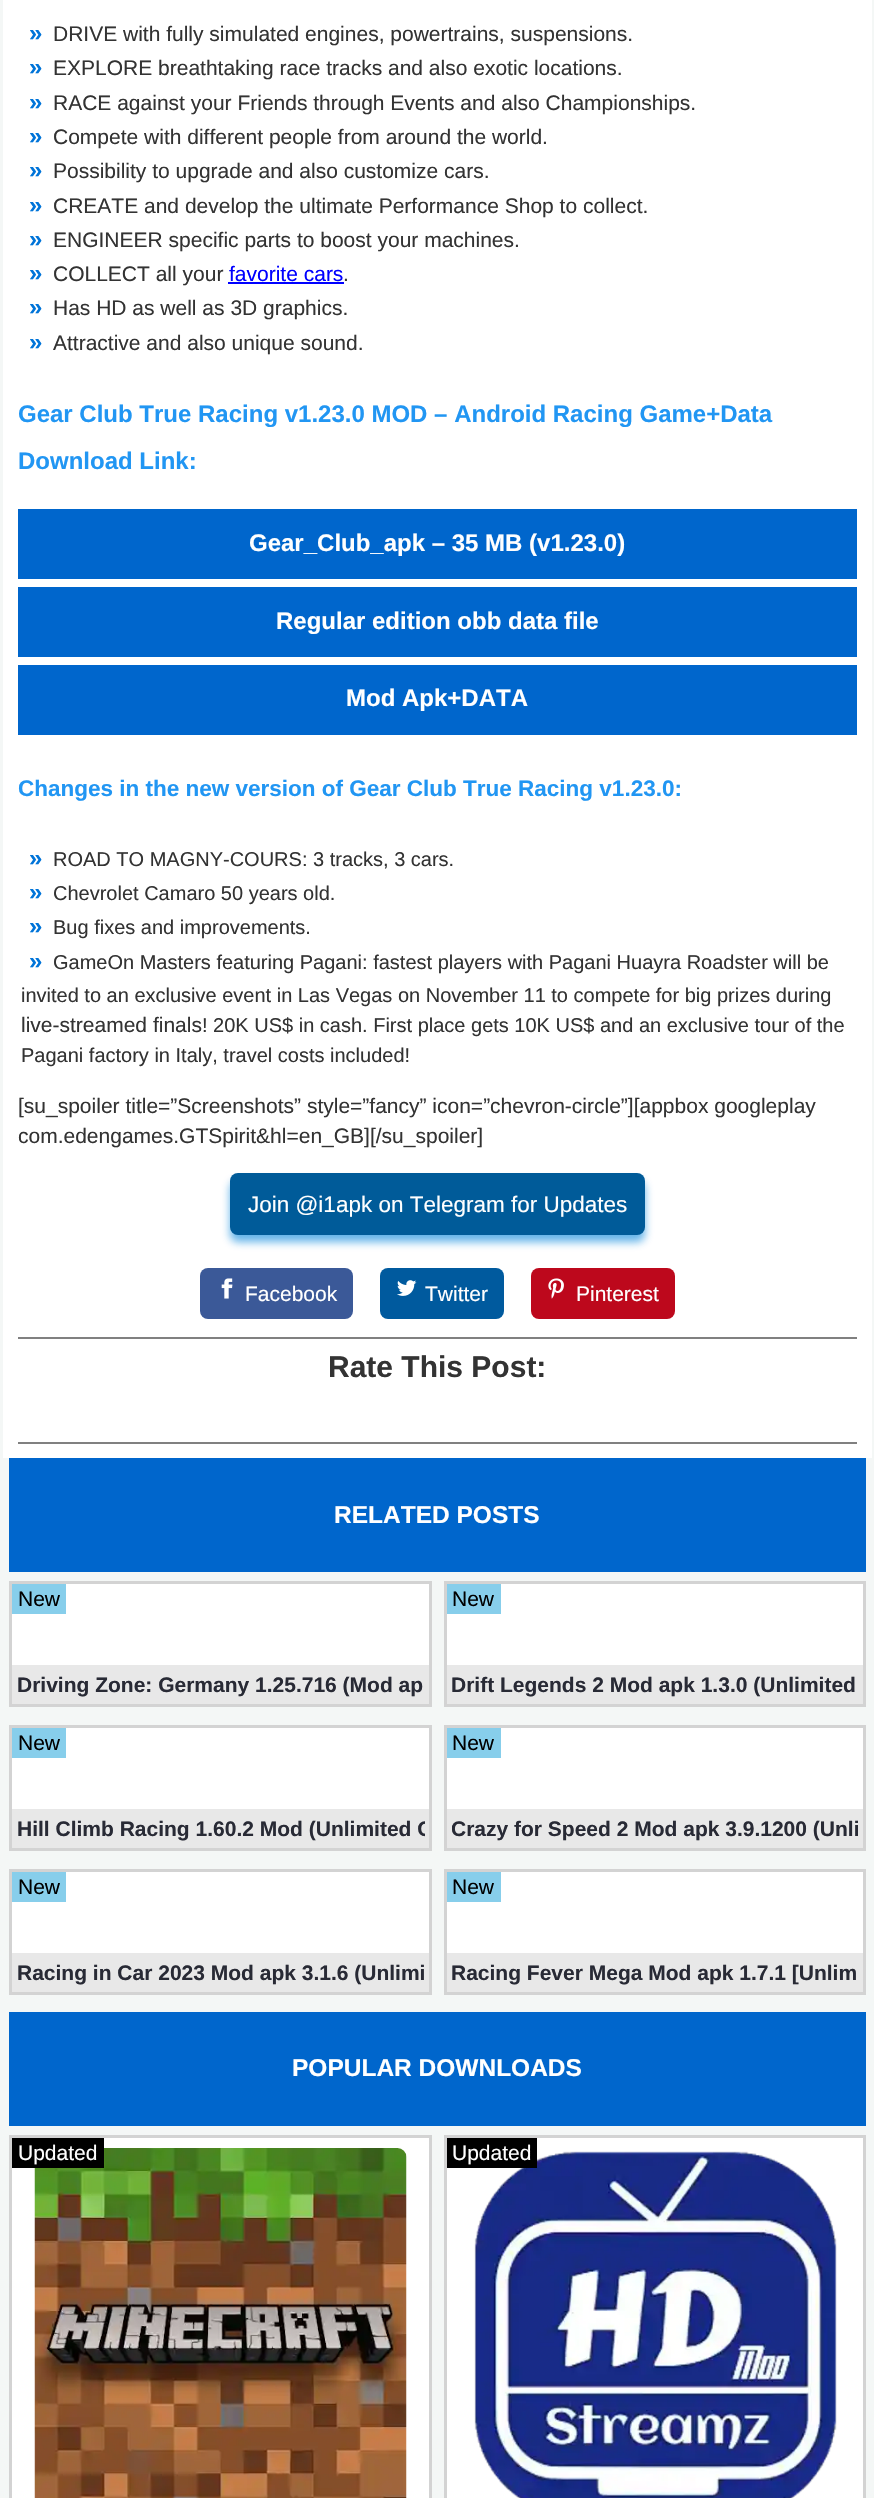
#include "include/core/SkBlurTypes.h"
#include "include/core/SkCanvas.h"
#include "include/core/SkData.h"
#include "include/core/SkFont.h"
#include "include/core/SkFontMgr.h"
#include "include/core/SkImage.h"
#include "include/core/SkMaskFilter.h"
#include "include/core/SkPaint.h"
#include "include/core/SkPathBuilder.h"
#include "include/core/SkTextBlob.h"
#include "include/effects/SkDashPathEffect.h"
#include "include/effects/SkGradientShader.h"
#include "include/utils/SkParsePath.h"

extern sk_sp<SkFontMgr> fontMgr;

void draw(SkCanvas* canvas) {
    SkPaint p;
    p.setAntiAlias(true);
    auto font = [&](const char* family, int weight, float size, bool italic = false) {
        SkFontStyle style(weight, SkFontStyle::kNormal_Width,
            italic ? SkFontStyle::kItalic_Slant : SkFontStyle::kUpright_Slant);
        SkFont result(fontMgr->matchFamilyStyle(family, style), size);
        result.setSubpixel(true);
        return result;
    };
    auto drawPhoto = [&](const char* path, float l, float t, float r, float b) {
        auto image = SkImages::DeferredFromEncodedData(SkData::MakeFromFileName(path));
        canvas->drawImageRect(image, SkRect::MakeLTRB(l, t, r, b), SkSamplingOptions());
    };
    canvas->clear(0xFFF4F7F6);
    p.setColor(0xFFFFFFFF);
    canvas->drawRect(SkRect::MakeLTRB(3, 0, 872, 1458), p);
    auto font1 = font("Liberation Sans", 700, 24);
    p.setColor(0xFF0074D9);
    canvas->drawString("»", 29, 41, font1, p);
    auto font2 = font("Liberation Sans", 400, 21);
    p.setColor(0xFF333333);
    canvas->drawString("DRIVE with fully simulated engines, powertrains, suspensions.", 53, 41, font2, p);
    p.setColor(0xFF0074D9);
    canvas->drawString("»", 29, 75, font1, p);
    p.setColor(0xFF333333);
    canvas->drawString("EXPLORE breathtaking race tracks and also exotic locations.", 53, 75, font2, p);
    p.setColor(0xFF0074D9);
    canvas->drawString("»", 29, 110, font1, p);
    p.setColor(0xFF333333);
    canvas->drawString("RACE against your Friends through Events and also Championships.", 53, 110, font2, p);
    p.setColor(0xFF0074D9);
    canvas->drawString("»", 29, 144, font1, p);
    p.setColor(0xFF333333);
    canvas->drawString("Compete with different people from around the world.", 53, 144, font2, p);
    p.setColor(0xFF0074D9);
    canvas->drawString("»", 29, 178, font1, p);
    p.setColor(0xFF333333);
    canvas->drawString("Possibility to upgrade and also customize cars.", 53, 178, font2, p);
    p.setColor(0xFF0074D9);
    canvas->drawString("»", 29, 213, font1, p);
    p.setColor(0xFF333333);
    canvas->drawString("CREATE and develop the ultimate Performance Shop to collect.", 53, 213, font2, p);
    p.setColor(0xFF0074D9);
    canvas->drawString("»", 29, 247, font1, p);
    p.setColor(0xFF333333);
    canvas->drawString("ENGINEER specific parts to boost your machines.", 53, 247, font2, p);
    p.setColor(0xFF0074D9);
    canvas->drawString("»", 29, 281, font1, p);
    p.setColor(0xFF333333);
    canvas->drawString("COLLECT all your", 53, 281, font2, p);
    p.setColor(0xFF0000FF);
    canvas->drawString("favorite cars", 229, 281, font2, p);
    canvas->drawRect(SkRect::MakeLTRB(228, 282, 344, 284), p);
    p.setColor(0xFF333333);
    canvas->drawString(".", 343, 281, font2, p);
    p.setColor(0xFF0074D9);
    canvas->drawString("»", 29, 315, font1, p);
    p.setColor(0xFF333333);
    canvas->drawString("Has HD as well as 3D graphics.", 53, 315, font2, p);
    p.setColor(0xFF0074D9);
    canvas->drawString("»", 29, 350, font1, p);
    p.setColor(0xFF333333);
    canvas->drawString("Attractive and also unique sound.", 53, 350, font2, p);
    p.setColor(0xFF2196F3);
    canvas->drawString("Gear Club True Racing v1.23.0 MOD – Android Racing Game+Data", 18, 422, font1, p);
    canvas->drawString("Download Link:", 18, 469, font1, p);
    p.setColor(0xFF0066CC);
    canvas->drawRect(SkRect::MakeLTRB(18, 509, 857, 579), p);
    p.setColor(0xFFFFFFFF);
    canvas->drawString("Gear_Club_apk – 35 MB (v1.23.0)", 249, 551, font1, p);
    p.setColor(0xFF0066CC);
    canvas->drawRect(SkRect::MakeLTRB(18, 587, 857, 657), p);
    p.setColor(0xFFFFFFFF);
    canvas->drawString("Regular edition obb data file", 276, 629, font1, p);
    p.setColor(0xFF0066CC);
    canvas->drawRect(SkRect::MakeLTRB(18, 665, 857, 735), p);
    p.setColor(0xFFFFFFFF);
    canvas->drawString("Mod Apk+DATA", 346, 706, font1, p);
    auto font3 = font("Liberation Sans", 700, 22.5f);
    p.setColor(0xFF2196F3);
    canvas->drawString("Changes in the new version of Gear Club True Racing v1.23.0:", 18, 796, font3, p);
    p.setColor(0xFF0074D9);
    canvas->drawString("»", 29, 866, font1, p);
    auto font4 = font("Liberation Sans", 400, 20);
    p.setColor(0xFF333333);
    canvas->drawString("ROAD TO MAGNY-COURS: 3 tracks, 3 cars.", 53, 866, font4, p);
    p.setColor(0xFF0074D9);
    canvas->drawString("»", 29, 900, font1, p);
    p.setColor(0xFF333333);
    canvas->drawString("Chevrolet Camaro 50 years old.", 53, 900, font4, p);
    p.setColor(0xFF0074D9);
    canvas->drawString("»", 29, 934, font1, p);
    p.setColor(0xFF333333);
    canvas->drawString("Bug fixes and improvements.", 53, 934, font4, p);
    p.setColor(0xFF0074D9);
    canvas->drawString("»", 29, 969, font1, p);
    p.setColor(0xFF333333);
    canvas->drawString("GameOn Masters featuring Pagani: fastest players with Pagani Huayra Roadster will be", 53, 969, font4, p);
    canvas->drawString("invited to an exclusive event in Las Vegas on November 11 to compete for big prizes during", 21, 1002, font4, p);
    canvas->drawString("live-streamed finals", 21, 1032, font2, p);
    canvas->drawString("! 20K US$ in cash. First place gets 10K US$ and an exclusive tour of the", 202, 1032, font4, p);
    canvas->drawString("Pagani factory in Italy, travel costs included!", 21, 1062, font4, p);
    canvas->drawString("[su_spoiler title=”Screenshots” style=”fancy” icon=”chevron-circle”][appbox googleplay", 18, 1113, font2, p);
    canvas->drawString("com.edengames.GTSpirit&hl=en_GB][/su_spoiler]", 18, 1143, font2, p);
    p.setColor(0x9E0384DB);
    p.setMaskFilter(SkMaskFilter::MakeBlur(kNormal_SkBlurStyle, 4.5f));
    canvas->drawRoundRect(SkRect::MakeLTRB(230, 1181, 645, 1242), 8, 8, p);
    p.setMaskFilter(nullptr);
    p.setColor(0xFF005B99);
    canvas->drawRoundRect(SkRect::MakeLTRB(230, 1173, 645, 1235), 8, 8, p);
    auto font5 = font("Liberation Sans", 400, 22.5f);
    p.setColor(0xFFFFFFFF);
    canvas->drawString("Join @i1apk on Telegram for Updates", 248, 1212, font5, p);
    p.setColor(0xFF3B5998);
    canvas->drawRoundRect(SkRect::MakeLTRB(200, 1268, 353, 1319), 8, 8, p);
    drawPhoto("media/1.png", 221, 1278, 233, 1299);
    p.setColor(0xFFFFFFFF);
    canvas->drawString("Facebook", 245, 1301, font2, p);
    p.setColor(0xFF005A9E);
    canvas->drawRoundRect(SkRect::MakeLTRB(380, 1268, 504, 1319), 8, 8, p);
    drawPhoto("media/2.png", 397, 1280, 417, 1296);
    p.setColor(0xFFFFFFFF);
    canvas->drawString("Twitter", 425, 1301, font2, p);
    p.setColor(0xFFBD081C);
    canvas->drawRoundRect(SkRect::MakeLTRB(531, 1268, 675, 1319), 8, 8, p);
    drawPhoto("media/3.png", 548, 1278, 564, 1299);
    p.setColor(0xFFFFFFFF);
    canvas->drawString("Pinterest", 576, 1301, font2, p);
    p.setColor(0xFF808080);
    canvas->drawRect(SkRect::MakeLTRB(18, 1337, 857, 1339), p);
    canvas->drawRect(SkRect::MakeLTRB(18, 1442, 857, 1444), p);
    auto font6 = font("Liberation Sans", 700, 30);
    p.setColor(0xFF333333);
    canvas->drawString("Rate This Post:", 328, 1377, font6, p);
    p.setColor(0xFF0066CC);
    canvas->drawRect(SkRect::MakeLTRB(9, 1458, 866, 1572), p);
    auto font7 = font("Liberation Sans", 700, 24.5f);
    p.setColor(0xFFFFFFFF);
    canvas->drawString("RELATED POSTS", 334, 1523, font7, p);
    canvas->drawRect(SkRect::MakeLTRB(12, 1584, 429, 1665), p);
    p.setStyle(SkPaint::kStroke_Style);
    p.setStrokeWidth(3);
    p.setColor(0xFFD3D3D3);
    canvas->drawRect(SkRect::MakeLTRB(10.5f, 1582.5f, 430.5f, 1705.5f), p);
    p.setStyle(SkPaint::kFill_Style);
    p.setColor(0xFF87CEEB);
    canvas->drawRect(SkRect::MakeLTRB(12, 1584, 66, 1614), p);
    p.setColor(0xFF000000);
    canvas->drawString("New", 18, 1606, font2, p);
    p.setColor(0xFFE8E8E8);
    canvas->drawRect(SkRect::MakeLTRB(12, 1665, 429, 1704), p);
    auto font8 = font("Liberation Sans", 700, 21);
    p.setColor(0xFF282A35);
    canvas->drawString("Driving Zone: Germany 1.25.716 (Mod ap", 17, 1692, font8, p);
    p.setColor(0xFFFFFFFF);
    canvas->drawRect(SkRect::MakeLTRB(447, 1584, 863, 1665), p);
    p.setStyle(SkPaint::kStroke_Style);
    p.setColor(0xFFD3D3D3);
    canvas->drawRect(SkRect::MakeLTRB(445.5f, 1582.5f, 864.5f, 1705.5f), p);
    p.setStyle(SkPaint::kFill_Style);
    p.setColor(0xFF87CEEB);
    canvas->drawRect(SkRect::MakeLTRB(447, 1584, 501, 1614), p);
    p.setColor(0xFF000000);
    canvas->drawString("New", 452, 1606, font2, p);
    p.setColor(0xFFE8E8E8);
    canvas->drawRect(SkRect::MakeLTRB(447, 1665, 863, 1704), p);
    p.setColor(0xFF282A35);
    canvas->drawString("Drift Legends 2 Mod apk 1.3.0 (Unlimited", 451, 1692, font8, p);
    p.setColor(0xFFFFFFFF);
    canvas->drawRect(SkRect::MakeLTRB(12, 1728, 429, 1809), p);
    p.setStyle(SkPaint::kStroke_Style);
    p.setColor(0xFFD3D3D3);
    canvas->drawRect(SkRect::MakeLTRB(10.5f, 1726.5f, 430.5f, 1849.5f), p);
    p.setStyle(SkPaint::kFill_Style);
    p.setColor(0xFF87CEEB);
    canvas->drawRect(SkRect::MakeLTRB(12, 1728, 66, 1758), p);
    p.setColor(0xFF000000);
    canvas->drawString("New", 18, 1750, font2, p);
    p.setColor(0xFFE8E8E8);
    canvas->drawRect(SkRect::MakeLTRB(12, 1809, 429, 1848), p);
    canvas->save();
    canvas->clipRect(SkRect::MakeLTRB(17, 1814, 425, 1844));
    p.setColor(0xFF282A35);
    canvas->drawString("Hill Climb Racing 1.60.2 Mod (Unlimited C", 17, 1836, font8, p);
    canvas->restore();
    p.setColor(0xFFFFFFFF);
    canvas->drawRect(SkRect::MakeLTRB(447, 1728, 863, 1809), p);
    p.setStyle(SkPaint::kStroke_Style);
    p.setColor(0xFFD3D3D3);
    canvas->drawRect(SkRect::MakeLTRB(445.5f, 1726.5f, 864.5f, 1849.5f), p);
    p.setStyle(SkPaint::kFill_Style);
    p.setColor(0xFF87CEEB);
    canvas->drawRect(SkRect::MakeLTRB(447, 1728, 501, 1758), p);
    p.setColor(0xFF000000);
    canvas->drawString("New", 452, 1750, font2, p);
    p.setColor(0xFFE8E8E8);
    canvas->drawRect(SkRect::MakeLTRB(447, 1809, 863, 1848), p);
    canvas->save();
    canvas->clipRect(SkRect::MakeLTRB(452, 1814, 858, 1844));
    p.setColor(0xFF282A35);
    canvas->drawString("Crazy for Speed 2 Mod apk 3.9.1200 (Unli", 451, 1836, font8, p);
    canvas->restore();
    p.setColor(0xFFFFFFFF);
    canvas->drawRect(SkRect::MakeLTRB(12, 1872, 429, 1953), p);
    p.setStyle(SkPaint::kStroke_Style);
    p.setColor(0xFFD3D3D3);
    canvas->drawRect(SkRect::MakeLTRB(10.5f, 1870.5f, 430.5f, 1993.5f), p);
    p.setStyle(SkPaint::kFill_Style);
    p.setColor(0xFF87CEEB);
    canvas->drawRect(SkRect::MakeLTRB(12, 1872, 66, 1902), p);
    p.setColor(0xFF000000);
    canvas->drawString("New", 18, 1894, font2, p);
    p.setColor(0xFFE8E8E8);
    canvas->drawRect(SkRect::MakeLTRB(12, 1953, 429, 1992), p);
    p.setColor(0xFF282A35);
    canvas->drawString("Racing in Car 2023 Mod apk 3.1.6 (Unlimi", 17, 1980, font8, p);
    p.setColor(0xFFFFFFFF);
    canvas->drawRect(SkRect::MakeLTRB(447, 1872, 863, 1953), p);
    p.setStyle(SkPaint::kStroke_Style);
    p.setColor(0xFFD3D3D3);
    canvas->drawRect(SkRect::MakeLTRB(445.5f, 1870.5f, 864.5f, 1993.5f), p);
    p.setStyle(SkPaint::kFill_Style);
    p.setColor(0xFF87CEEB);
    canvas->drawRect(SkRect::MakeLTRB(447, 1872, 501, 1902), p);
    p.setColor(0xFF000000);
    canvas->drawString("New", 452, 1894, font2, p);
    p.setColor(0xFFE8E8E8);
    canvas->drawRect(SkRect::MakeLTRB(447, 1953, 863, 1992), p);
    p.setColor(0xFF282A35);
    canvas->drawString("Racing Fever Mega Mod apk 1.7.1 [Unlim", 451, 1980, font8, p);
    p.setColor(0xFF0066CC);
    canvas->drawRect(SkRect::MakeLTRB(9, 2012, 866, 2126), p);
    p.setColor(0xFFFFFFFF);
    canvas->drawString("POPULAR DOWNLOADS", 292, 2076, font7, p);
    canvas->drawRect(SkRect::MakeLTRB(10.5f, 2136.5f, 430.5f, 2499.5f), p);
    p.setStyle(SkPaint::kStroke_Style);
    p.setColor(0xFFD3D3D3);
    canvas->drawRect(SkRect::MakeLTRB(10.5f, 2136.5f, 430.5f, 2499.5f), p);
    drawPhoto("media/4.png", 34, 2148, 407, 2498);
    p.setStyle(SkPaint::kFill_Style);
    p.setColor(0xFF000000);
    canvas->drawRect(SkRect::MakeLTRB(12, 2138, 104, 2168), p);
    p.setColor(0xFFFFFFFF);
    canvas->drawString("Updated", 18, 2160, font2, p);
    canvas->drawRect(SkRect::MakeLTRB(445.5f, 2136.5f, 864.5f, 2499.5f), p);
    p.setStyle(SkPaint::kStroke_Style);
    p.setColor(0xFFD3D3D3);
    canvas->drawRect(SkRect::MakeLTRB(445.5f, 2136.5f, 864.5f, 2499.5f), p);
    drawPhoto("media/5.png", 474, 2151, 837, 2498);
    p.setStyle(SkPaint::kFill_Style);
    p.setColor(0xFF000000);
    canvas->drawRect(SkRect::MakeLTRB(447, 2138, 537, 2168), p);
    p.setColor(0xFFFFFFFF);
    canvas->drawString("Updated", 452, 2160, font2, p);
}
